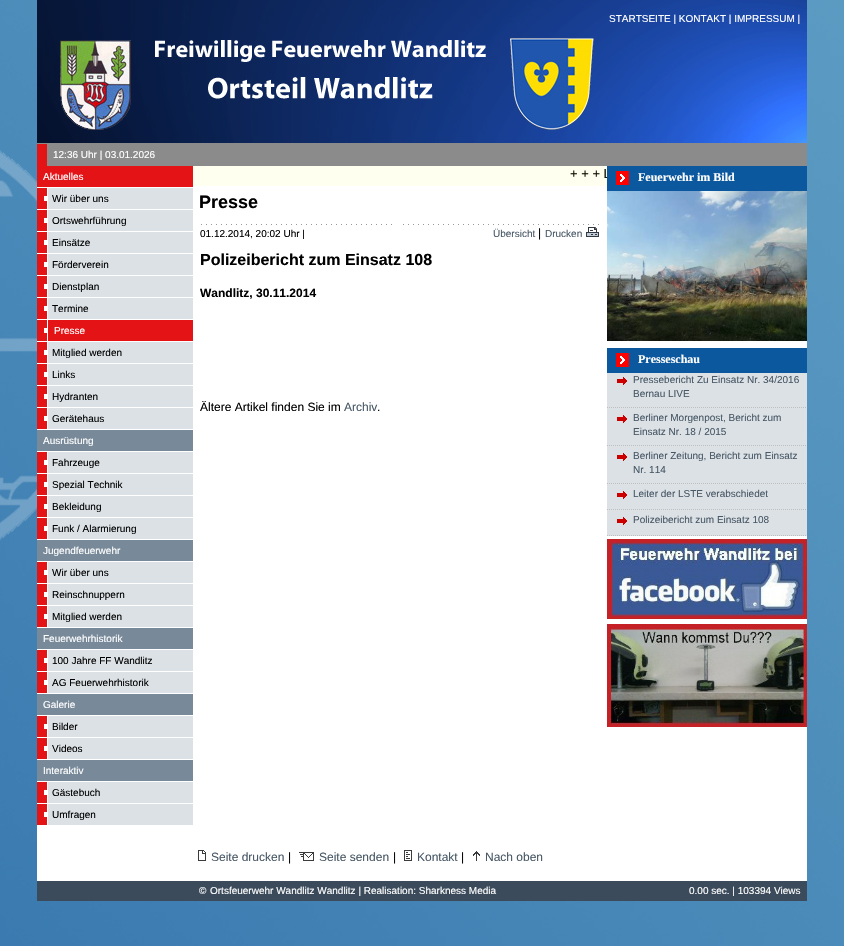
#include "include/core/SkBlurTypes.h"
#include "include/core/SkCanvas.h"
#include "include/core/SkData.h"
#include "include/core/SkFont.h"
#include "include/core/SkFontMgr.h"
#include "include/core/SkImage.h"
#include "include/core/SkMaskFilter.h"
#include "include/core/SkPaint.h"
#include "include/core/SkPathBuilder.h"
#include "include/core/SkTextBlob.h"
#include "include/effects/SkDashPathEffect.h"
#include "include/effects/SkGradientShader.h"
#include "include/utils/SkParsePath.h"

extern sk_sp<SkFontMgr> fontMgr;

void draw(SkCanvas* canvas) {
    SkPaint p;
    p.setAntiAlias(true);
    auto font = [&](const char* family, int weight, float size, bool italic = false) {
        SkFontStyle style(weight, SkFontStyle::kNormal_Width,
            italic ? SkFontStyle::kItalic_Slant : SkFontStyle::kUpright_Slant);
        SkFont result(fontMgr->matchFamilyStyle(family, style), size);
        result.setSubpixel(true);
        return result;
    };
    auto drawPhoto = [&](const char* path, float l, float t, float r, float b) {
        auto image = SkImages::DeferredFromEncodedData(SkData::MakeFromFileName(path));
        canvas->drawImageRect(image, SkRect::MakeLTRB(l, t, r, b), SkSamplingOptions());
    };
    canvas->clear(0xFFFFFFFF);
    drawPhoto("media/1.png", 0, 0, 844, 946);
    drawPhoto("media/2.png", 37, 0, 807, 143);
    auto font1 = font("Liberation Sans", 400, 10);
    p.setColor(0xFFFFFFFF);
    canvas->drawString("STARTSEITE | KONTAKT | IMPRESSUM |", 609, 22, font1, p);
    p.setColor(0xFF8B8B8B);
    canvas->drawRect(SkRect::MakeLTRB(37, 143, 807, 166), p);
    p.setColor(0xFFE41416);
    canvas->drawRect(SkRect::MakeLTRB(37, 144, 47, 166), p);
    p.setColor(0xFFFFFFFF);
    canvas->drawString("12:36 Uhr | 03.01.2026", 53, 158, font1, p);
    {
        const struct { float l, t, r, b; SkColor color; } items[] = {
            {37, 826, 193, 881, 0xFFFFFFFF},
            {37, 166, 193, 187, 0xFFE41416},
            {37, 187, 193, 188, 0xFFFFFFFF},
        };
        for (auto [l, t, r, b, color] : items) {
            p.setColor(color);
            canvas->drawRect(SkRect::MakeLTRB(l, t, r, b), p);
        }
    }
    canvas->drawString("Aktuelles", 43, 180, font1, p);
    {
        const struct { float l, t, r, b; SkColor color; } items[] = {
            {37, 188, 47, 209, 0xFFE41416},
            {47, 188, 48, 430, 0xFFFFFFFF},
            {37, 209, 193, 210, 0xFFFFFFFF},
            {44, 196, 47, 201, 0xFFFFFFFF},
            {48, 188, 193, 209, 0xFFDCE1E5},
        };
        for (auto [l, t, r, b, color] : items) {
            p.setColor(color);
            canvas->drawRect(SkRect::MakeLTRB(l, t, r, b), p);
        }
    }
    p.setColor(0xFF000000);
    canvas->drawString("Wir über uns", 52, 202, font1, p);
    {
        const struct { float l, t, r, b; SkColor color; } items[] = {
            {37, 210, 47, 231, 0xFFE41416},
            {37, 231, 193, 232, 0xFFFFFFFF},
            {44, 218, 47, 223, 0xFFFFFFFF},
            {48, 210, 193, 231, 0xFFDCE1E5},
        };
        for (auto [l, t, r, b, color] : items) {
            p.setColor(color);
            canvas->drawRect(SkRect::MakeLTRB(l, t, r, b), p);
        }
    }
    p.setColor(0xFF000000);
    canvas->drawString("Ortswehrführung", 52, 224, font1, p);
    {
        const struct { float l, t, r, b; SkColor color; } items[] = {
            {37, 232, 47, 253, 0xFFE41416},
            {37, 253, 193, 254, 0xFFFFFFFF},
            {44, 240, 47, 245, 0xFFFFFFFF},
            {48, 232, 193, 253, 0xFFDCE1E5},
        };
        for (auto [l, t, r, b, color] : items) {
            p.setColor(color);
            canvas->drawRect(SkRect::MakeLTRB(l, t, r, b), p);
        }
    }
    p.setColor(0xFF000000);
    canvas->drawString("Einsätze", 52, 246, font1, p);
    {
        const struct { float l, t, r, b; SkColor color; } items[] = {
            {37, 254, 47, 275, 0xFFE41416},
            {37, 275, 193, 276, 0xFFFFFFFF},
            {44, 262, 47, 267, 0xFFFFFFFF},
            {48, 254, 193, 275, 0xFFDCE1E5},
        };
        for (auto [l, t, r, b, color] : items) {
            p.setColor(color);
            canvas->drawRect(SkRect::MakeLTRB(l, t, r, b), p);
        }
    }
    p.setColor(0xFF000000);
    canvas->drawString("Förderverein", 52, 268, font1, p);
    {
        const struct { float l, t, r, b; SkColor color; } items[] = {
            {37, 276, 47, 297, 0xFFE41416},
            {37, 297, 193, 298, 0xFFFFFFFF},
            {44, 284, 47, 289, 0xFFFFFFFF},
            {48, 276, 193, 297, 0xFFDCE1E5},
        };
        for (auto [l, t, r, b, color] : items) {
            p.setColor(color);
            canvas->drawRect(SkRect::MakeLTRB(l, t, r, b), p);
        }
    }
    p.setColor(0xFF000000);
    canvas->drawString("Dienstplan", 52, 290, font1, p);
    {
        const struct { float l, t, r, b; SkColor color; } items[] = {
            {37, 298, 47, 319, 0xFFE41416},
            {37, 319, 193, 320, 0xFFFFFFFF},
            {44, 306, 47, 311, 0xFFFFFFFF},
            {48, 298, 193, 319, 0xFFDCE1E5},
        };
        for (auto [l, t, r, b, color] : items) {
            p.setColor(color);
            canvas->drawRect(SkRect::MakeLTRB(l, t, r, b), p);
        }
    }
    p.setColor(0xFF000000);
    canvas->drawString("Termine", 52, 312, font1, p);
    {
        const struct { float l, t, r, b; SkColor color; } items[] = {
            {37, 320, 47, 341, 0xFFE41416},
            {37, 341, 193, 342, 0xFFFFFFFF},
            {44, 328, 47, 333, 0xFFFFFFFF},
            {48, 320, 193, 341, 0xFFE41416},
        };
        for (auto [l, t, r, b, color] : items) {
            p.setColor(color);
            canvas->drawRect(SkRect::MakeLTRB(l, t, r, b), p);
        }
    }
    p.setColor(0xFFFFFFFF);
    canvas->drawString("Presse", 54, 334, font1, p);
    {
        const struct { float l, t, r, b; SkColor color; } items[] = {
            {37, 342, 47, 363, 0xFFE41416},
            {37, 363, 193, 364, 0xFFFFFFFF},
            {44, 350, 47, 355, 0xFFFFFFFF},
            {48, 342, 193, 363, 0xFFDCE1E5},
        };
        for (auto [l, t, r, b, color] : items) {
            p.setColor(color);
            canvas->drawRect(SkRect::MakeLTRB(l, t, r, b), p);
        }
    }
    p.setColor(0xFF000000);
    canvas->drawString("Mitglied werden", 52, 356, font1, p);
    {
        const struct { float l, t, r, b; SkColor color; } items[] = {
            {37, 364, 47, 385, 0xFFE41416},
            {37, 385, 193, 386, 0xFFFFFFFF},
            {44, 372, 47, 377, 0xFFFFFFFF},
            {48, 364, 193, 385, 0xFFDCE1E5},
        };
        for (auto [l, t, r, b, color] : items) {
            p.setColor(color);
            canvas->drawRect(SkRect::MakeLTRB(l, t, r, b), p);
        }
    }
    p.setColor(0xFF000000);
    canvas->drawString("Links", 52, 378, font1, p);
    {
        const struct { float l, t, r, b; SkColor color; } items[] = {
            {37, 386, 47, 407, 0xFFE41416},
            {37, 407, 193, 408, 0xFFFFFFFF},
            {44, 394, 47, 399, 0xFFFFFFFF},
            {48, 386, 193, 407, 0xFFDCE1E5},
        };
        for (auto [l, t, r, b, color] : items) {
            p.setColor(color);
            canvas->drawRect(SkRect::MakeLTRB(l, t, r, b), p);
        }
    }
    p.setColor(0xFF000000);
    canvas->drawString("Hydranten", 52, 400, font1, p);
    {
        const struct { float l, t, r, b; SkColor color; } items[] = {
            {37, 408, 47, 429, 0xFFE41416},
            {37, 429, 193, 430, 0xFFFFFFFF},
            {44, 416, 47, 421, 0xFFFFFFFF},
            {48, 408, 193, 429, 0xFFDCE1E5},
        };
        for (auto [l, t, r, b, color] : items) {
            p.setColor(color);
            canvas->drawRect(SkRect::MakeLTRB(l, t, r, b), p);
        }
    }
    p.setColor(0xFF000000);
    canvas->drawString("Gerätehaus", 52, 422, font1, p);
    p.setColor(0xFF788999);
    canvas->drawRect(SkRect::MakeLTRB(37, 430, 193, 451), p);
    p.setColor(0xFFFFFFFF);
    canvas->drawRect(SkRect::MakeLTRB(37, 451, 193, 452), p);
    canvas->drawString("Ausrüstung", 43, 444, font1, p);
    {
        const struct { float l, t, r, b; SkColor color; } items[] = {
            {37, 452, 47, 473, 0xFFE41416},
            {47, 452, 48, 540, 0xFFFFFFFF},
            {37, 473, 193, 474, 0xFFFFFFFF},
            {44, 460, 47, 465, 0xFFFFFFFF},
            {48, 452, 193, 473, 0xFFDCE1E5},
        };
        for (auto [l, t, r, b, color] : items) {
            p.setColor(color);
            canvas->drawRect(SkRect::MakeLTRB(l, t, r, b), p);
        }
    }
    p.setColor(0xFF000000);
    canvas->drawString("Fahrzeuge", 52, 466, font1, p);
    {
        const struct { float l, t, r, b; SkColor color; } items[] = {
            {37, 474, 47, 495, 0xFFE41416},
            {37, 495, 193, 496, 0xFFFFFFFF},
            {44, 482, 47, 487, 0xFFFFFFFF},
            {48, 474, 193, 495, 0xFFDCE1E5},
        };
        for (auto [l, t, r, b, color] : items) {
            p.setColor(color);
            canvas->drawRect(SkRect::MakeLTRB(l, t, r, b), p);
        }
    }
    p.setColor(0xFF000000);
    canvas->drawString("Spezial Technik", 52, 488, font1, p);
    {
        const struct { float l, t, r, b; SkColor color; } items[] = {
            {37, 496, 47, 517, 0xFFE41416},
            {37, 517, 193, 518, 0xFFFFFFFF},
            {44, 504, 47, 509, 0xFFFFFFFF},
            {48, 496, 193, 517, 0xFFDCE1E5},
        };
        for (auto [l, t, r, b, color] : items) {
            p.setColor(color);
            canvas->drawRect(SkRect::MakeLTRB(l, t, r, b), p);
        }
    }
    p.setColor(0xFF000000);
    canvas->drawString("Bekleidung", 52, 510, font1, p);
    {
        const struct { float l, t, r, b; SkColor color; } items[] = {
            {37, 518, 47, 539, 0xFFE41416},
            {37, 539, 193, 540, 0xFFFFFFFF},
            {44, 526, 47, 531, 0xFFFFFFFF},
            {48, 518, 193, 539, 0xFFDCE1E5},
        };
        for (auto [l, t, r, b, color] : items) {
            p.setColor(color);
            canvas->drawRect(SkRect::MakeLTRB(l, t, r, b), p);
        }
    }
    p.setColor(0xFF000000);
    canvas->drawString("Funk / Alarmierung", 52, 532, font1, p);
    p.setColor(0xFF788999);
    canvas->drawRect(SkRect::MakeLTRB(37, 540, 193, 561), p);
    p.setColor(0xFFFFFFFF);
    canvas->drawRect(SkRect::MakeLTRB(37, 561, 193, 562), p);
    canvas->drawString("Jugendfeuerwehr", 43, 554, font1, p);
    {
        const struct { float l, t, r, b; SkColor color; } items[] = {
            {37, 562, 47, 583, 0xFFE41416},
            {47, 562, 48, 628, 0xFFFFFFFF},
            {37, 583, 193, 584, 0xFFFFFFFF},
            {44, 570, 47, 575, 0xFFFFFFFF},
            {48, 562, 193, 583, 0xFFDCE1E5},
        };
        for (auto [l, t, r, b, color] : items) {
            p.setColor(color);
            canvas->drawRect(SkRect::MakeLTRB(l, t, r, b), p);
        }
    }
    p.setColor(0xFF000000);
    canvas->drawString("Wir über uns", 52, 576, font1, p);
    {
        const struct { float l, t, r, b; SkColor color; } items[] = {
            {37, 584, 47, 605, 0xFFE41416},
            {37, 605, 193, 606, 0xFFFFFFFF},
            {44, 592, 47, 597, 0xFFFFFFFF},
            {48, 584, 193, 605, 0xFFDCE1E5},
        };
        for (auto [l, t, r, b, color] : items) {
            p.setColor(color);
            canvas->drawRect(SkRect::MakeLTRB(l, t, r, b), p);
        }
    }
    p.setColor(0xFF000000);
    canvas->drawString("Reinschnuppern", 52, 598, font1, p);
    {
        const struct { float l, t, r, b; SkColor color; } items[] = {
            {37, 606, 47, 627, 0xFFE41416},
            {37, 627, 193, 628, 0xFFFFFFFF},
            {44, 614, 47, 619, 0xFFFFFFFF},
            {48, 606, 193, 627, 0xFFDCE1E5},
        };
        for (auto [l, t, r, b, color] : items) {
            p.setColor(color);
            canvas->drawRect(SkRect::MakeLTRB(l, t, r, b), p);
        }
    }
    p.setColor(0xFF000000);
    canvas->drawString("Mitglied werden", 52, 620, font1, p);
    p.setColor(0xFF788999);
    canvas->drawRect(SkRect::MakeLTRB(37, 628, 193, 649), p);
    p.setColor(0xFFFFFFFF);
    canvas->drawRect(SkRect::MakeLTRB(37, 649, 193, 650), p);
    canvas->drawString("Feuerwehrhistorik", 43, 642, font1, p);
    {
        const struct { float l, t, r, b; SkColor color; } items[] = {
            {37, 650, 47, 671, 0xFFE41416},
            {47, 650, 48, 694, 0xFFFFFFFF},
            {37, 671, 193, 672, 0xFFFFFFFF},
            {44, 658, 47, 663, 0xFFFFFFFF},
            {48, 650, 193, 671, 0xFFDCE1E5},
        };
        for (auto [l, t, r, b, color] : items) {
            p.setColor(color);
            canvas->drawRect(SkRect::MakeLTRB(l, t, r, b), p);
        }
    }
    p.setColor(0xFF000000);
    canvas->drawString("100 Jahre FF Wandlitz", 52, 664, font1, p);
    {
        const struct { float l, t, r, b; SkColor color; } items[] = {
            {37, 672, 47, 693, 0xFFE41416},
            {37, 693, 193, 694, 0xFFFFFFFF},
            {44, 680, 47, 685, 0xFFFFFFFF},
            {48, 672, 193, 693, 0xFFDCE1E5},
        };
        for (auto [l, t, r, b, color] : items) {
            p.setColor(color);
            canvas->drawRect(SkRect::MakeLTRB(l, t, r, b), p);
        }
    }
    p.setColor(0xFF000000);
    canvas->drawString("AG Feuerwehrhistorik", 52, 686, font1, p);
    p.setColor(0xFF788999);
    canvas->drawRect(SkRect::MakeLTRB(37, 694, 193, 715), p);
    p.setColor(0xFFFFFFFF);
    canvas->drawRect(SkRect::MakeLTRB(37, 715, 193, 716), p);
    canvas->drawString("Galerie", 43, 708, font1, p);
    {
        const struct { float l, t, r, b; SkColor color; } items[] = {
            {37, 716, 47, 737, 0xFFE41416},
            {47, 716, 48, 760, 0xFFFFFFFF},
            {37, 737, 193, 738, 0xFFFFFFFF},
            {44, 724, 47, 729, 0xFFFFFFFF},
            {48, 716, 193, 737, 0xFFDCE1E5},
        };
        for (auto [l, t, r, b, color] : items) {
            p.setColor(color);
            canvas->drawRect(SkRect::MakeLTRB(l, t, r, b), p);
        }
    }
    p.setColor(0xFF000000);
    canvas->drawString("Bilder", 52, 730, font1, p);
    {
        const struct { float l, t, r, b; SkColor color; } items[] = {
            {37, 738, 47, 759, 0xFFE41416},
            {37, 759, 193, 760, 0xFFFFFFFF},
            {44, 746, 47, 751, 0xFFFFFFFF},
            {48, 738, 193, 759, 0xFFDCE1E5},
        };
        for (auto [l, t, r, b, color] : items) {
            p.setColor(color);
            canvas->drawRect(SkRect::MakeLTRB(l, t, r, b), p);
        }
    }
    p.setColor(0xFF000000);
    canvas->drawString("Videos", 52, 752, font1, p);
    p.setColor(0xFF788999);
    canvas->drawRect(SkRect::MakeLTRB(37, 760, 193, 781), p);
    p.setColor(0xFFFFFFFF);
    canvas->drawRect(SkRect::MakeLTRB(37, 781, 193, 782), p);
    canvas->drawString("Interaktiv", 43, 774, font1, p);
    {
        const struct { float l, t, r, b; SkColor color; } items[] = {
            {37, 782, 47, 803, 0xFFE41416},
            {47, 782, 48, 826, 0xFFFFFFFF},
            {37, 803, 193, 804, 0xFFFFFFFF},
            {44, 790, 47, 795, 0xFFFFFFFF},
            {48, 782, 193, 803, 0xFFDCE1E5},
        };
        for (auto [l, t, r, b, color] : items) {
            p.setColor(color);
            canvas->drawRect(SkRect::MakeLTRB(l, t, r, b), p);
        }
    }
    p.setColor(0xFF000000);
    canvas->drawString("Gästebuch", 52, 796, font1, p);
    {
        const struct { float l, t, r, b; SkColor color; } items[] = {
            {37, 804, 47, 825, 0xFFE41416},
            {37, 825, 193, 826, 0xFFFFFFFF},
            {44, 812, 47, 817, 0xFFFFFFFF},
            {48, 804, 193, 825, 0xFFDCE1E5},
        };
        for (auto [l, t, r, b, color] : items) {
            p.setColor(color);
            canvas->drawRect(SkRect::MakeLTRB(l, t, r, b), p);
        }
    }
    p.setColor(0xFF000000);
    canvas->drawString("Umfragen", 52, 818, font1, p);
    p.setColor(0xFFFFFFFF);
    canvas->drawRect(SkRect::MakeLTRB(193, 186, 607, 881), p);
    p.setColor(0xFFFFFFF0);
    canvas->drawRect(SkRect::MakeLTRB(193, 166, 607, 186), p);
    canvas->save();
    canvas->clipRect(SkRect::MakeLTRB(193, 166, 607, 186));
    auto font2 = font("Liberation Sans", 400, 13);
    p.setColor(0xFF111100);
    canvas->drawString("+ + + L", 570, 178, font2, p);
    canvas->restore();
    auto font3 = font("Liberation Sans", 700, 18);
    p.setColor(0xFF000000);
    canvas->drawString("Presse", 199, 208, font3, p);
    drawPhoto("media/3.png", 201, 224, 392, 225);
    canvas->drawString("01.12.2014, 20:02 Uhr |", 200, 237, font1, p);
    drawPhoto("media/4.png", 403, 224, 599, 225);
    p.setColor(0xFF485866);
    canvas->drawString("Übersicht", 493, 237, font1, p);
    auto font4 = font("Liberation Sans", 400, 12);
    p.setColor(0xFF000000);
    canvas->drawString("|", 538, 237, font4, p);
    p.setColor(0xFF485866);
    canvas->drawString("Drucken", 545, 237, font1, p);
    drawPhoto("media/5.png", 586, 227, 599, 237);
    auto font5 = font("Liberation Sans", 700, 16);
    p.setColor(0xFF000000);
    canvas->drawString("Polizeibericht zum Einsatz 108", 200, 265, font5, p);
    auto font6 = font("Liberation Sans", 700, 12);
    canvas->drawString("Wandlitz, 30.11.2014", 200, 297, font6, p);
    canvas->drawString("Ältere Artikel finden Sie im", 200, 411, font4, p);
    p.setColor(0xFF485866);
    canvas->drawString("Archiv", 344, 411, font4, p);
    p.setColor(0xFF000000);
    canvas->drawString(".", 377, 411, font4, p);
    p.setColor(0xFFFFFFFF);
    canvas->drawRect(SkRect::MakeLTRB(607, 341, 807, 881), p);
    p.setColor(0xFF0B589E);
    canvas->drawRect(SkRect::MakeLTRB(607, 166, 807, 191), p);
    drawPhoto("media/6.png", 616, 171, 629, 185);
    auto font7 = font("Liberation Serif", 700, 12);
    p.setColor(0xFFFFFFFF);
    canvas->drawString("Feuerwehr im Bild", 638, 181, font7, p);
    drawPhoto("media/7.png", 607, 191, 807, 341);
    p.setColor(0xFF0B589E);
    canvas->drawRect(SkRect::MakeLTRB(607, 348, 807, 373), p);
    drawPhoto("media/6.png", 616, 353, 629, 367);
    p.setColor(0xFFFFFFFF);
    canvas->drawString("Presseschau", 638, 363, font7, p);
    p.setColor(0xFFDCE1E5);
    canvas->drawRect(SkRect::MakeLTRB(607, 373, 807, 536), p);
    drawPhoto("media/8.png", 617, 377, 627, 385);
    p.setColor(0xFF485866);
    canvas->drawString("Pressebericht Zu Einsatz Nr. 34/2016", 633, 383, font1, p);
    canvas->drawString("Bernau LIVE", 633, 397, font1, p);
    p.setStyle(SkPaint::kStroke_Style);
    p.setStrokeWidth(1);
    p.setColor(0xFFBFBFBF);
    p.setPathEffect(SkDashPathEffect::Make({{1, 1}}, 0));
    canvas->drawPath(SkPathBuilder().moveTo(607, 407.5f).lineTo(807, 407.5f).detach(), p);
    p.setPathEffect(nullptr);
    drawPhoto("media/8.png", 617, 415, 627, 423);
    p.setStyle(SkPaint::kFill_Style);
    p.setColor(0xFF485866);
    canvas->drawString("Berliner Morgenpost, Bericht zum", 633, 421, font1, p);
    canvas->drawString("Einsatz Nr. 18 / 2015", 633, 435, font1, p);
    p.setStyle(SkPaint::kStroke_Style);
    p.setColor(0xFFBFBFBF);
    p.setPathEffect(SkDashPathEffect::Make({{1, 1}}, 0));
    canvas->drawPath(SkPathBuilder().moveTo(607, 445.5f).lineTo(807, 445.5f).detach(), p);
    p.setPathEffect(nullptr);
    drawPhoto("media/8.png", 617, 453, 627, 461);
    p.setStyle(SkPaint::kFill_Style);
    p.setColor(0xFF485866);
    canvas->drawString("Berliner Zeitung, Bericht zum Einsatz", 633, 459, font1, p);
    canvas->drawString("Nr. 114", 633, 473, font1, p);
    p.setStyle(SkPaint::kStroke_Style);
    p.setColor(0xFFBFBFBF);
    p.setPathEffect(SkDashPathEffect::Make({{1, 1}}, 0));
    canvas->drawPath(SkPathBuilder().moveTo(607, 483.5f).lineTo(807, 483.5f).detach(), p);
    p.setPathEffect(nullptr);
    drawPhoto("media/8.png", 617, 491, 627, 499);
    p.setStyle(SkPaint::kFill_Style);
    p.setColor(0xFF485866);
    canvas->drawString("Leiter der LSTE verabschiedet", 633, 497, font1, p);
    p.setStyle(SkPaint::kStroke_Style);
    p.setColor(0xFFBFBFBF);
    p.setPathEffect(SkDashPathEffect::Make({{1, 1}}, 0));
    canvas->drawPath(SkPathBuilder().moveTo(607, 509.5f).lineTo(807, 509.5f).detach(), p);
    p.setPathEffect(nullptr);
    drawPhoto("media/8.png", 617, 517, 627, 525);
    p.setStyle(SkPaint::kFill_Style);
    p.setColor(0xFF485866);
    canvas->drawString("Polizeibericht zum Einsatz 108", 633, 523, font1, p);
    p.setStyle(SkPaint::kStroke_Style);
    p.setColor(0xFFBFBFBF);
    p.setPathEffect(SkDashPathEffect::Make({{1, 1}}, 0));
    canvas->drawPath(SkPathBuilder().moveTo(607, 535.5f).lineTo(807, 535.5f).detach(), p);
    p.setPathEffect(nullptr);
    drawPhoto("media/9.png", 607, 539, 807, 619);
    drawPhoto("media/10.png", 607, 624, 807, 727);
    drawPhoto("media/11.png", 198, 850, 206, 861);
    p.setStyle(SkPaint::kFill_Style);
    p.setColor(0xFF485866);
    canvas->drawString("Seite drucken", 211, 861, font4, p);
    p.setColor(0xFF000000);
    canvas->drawString("|", 288, 861, font4, p);
    drawPhoto("media/12.png", 299, 852, 314, 861);
    p.setColor(0xFF485866);
    canvas->drawString("Seite senden", 319, 861, font4, p);
    p.setColor(0xFF000000);
    canvas->drawString("|", 393, 861, font4, p);
    drawPhoto("media/13.png", 404, 850, 412, 861);
    p.setColor(0xFF485866);
    canvas->drawString("Kontakt", 417, 861, font4, p);
    p.setColor(0xFF000000);
    canvas->drawString("|", 461, 861, font4, p);
    drawPhoto("media/14.png", 473, 851, 480, 861);
    p.setColor(0xFF485866);
    canvas->drawString("Nach oben", 485, 861, font4, p);
    p.setColor(0xFF3B4B5B);
    canvas->drawRect(SkRect::MakeLTRB(37, 881, 807, 901), p);
    p.setColor(0xFFFFFFFF);
    {
        const struct { const char* s; float x, y; } items[] = {
            {"©", 199, 894},
            {"Ortsfeuerwehr Wandlitz Wandlitz | Realisation: Sharkness Media", 210, 894},
            {"0.00 sec. | 103394 Views", 689, 894},
        };
        for (auto [s, x, y] : items) {
            canvas->drawString(s, x, y, font1, p);
        }
    }
}
